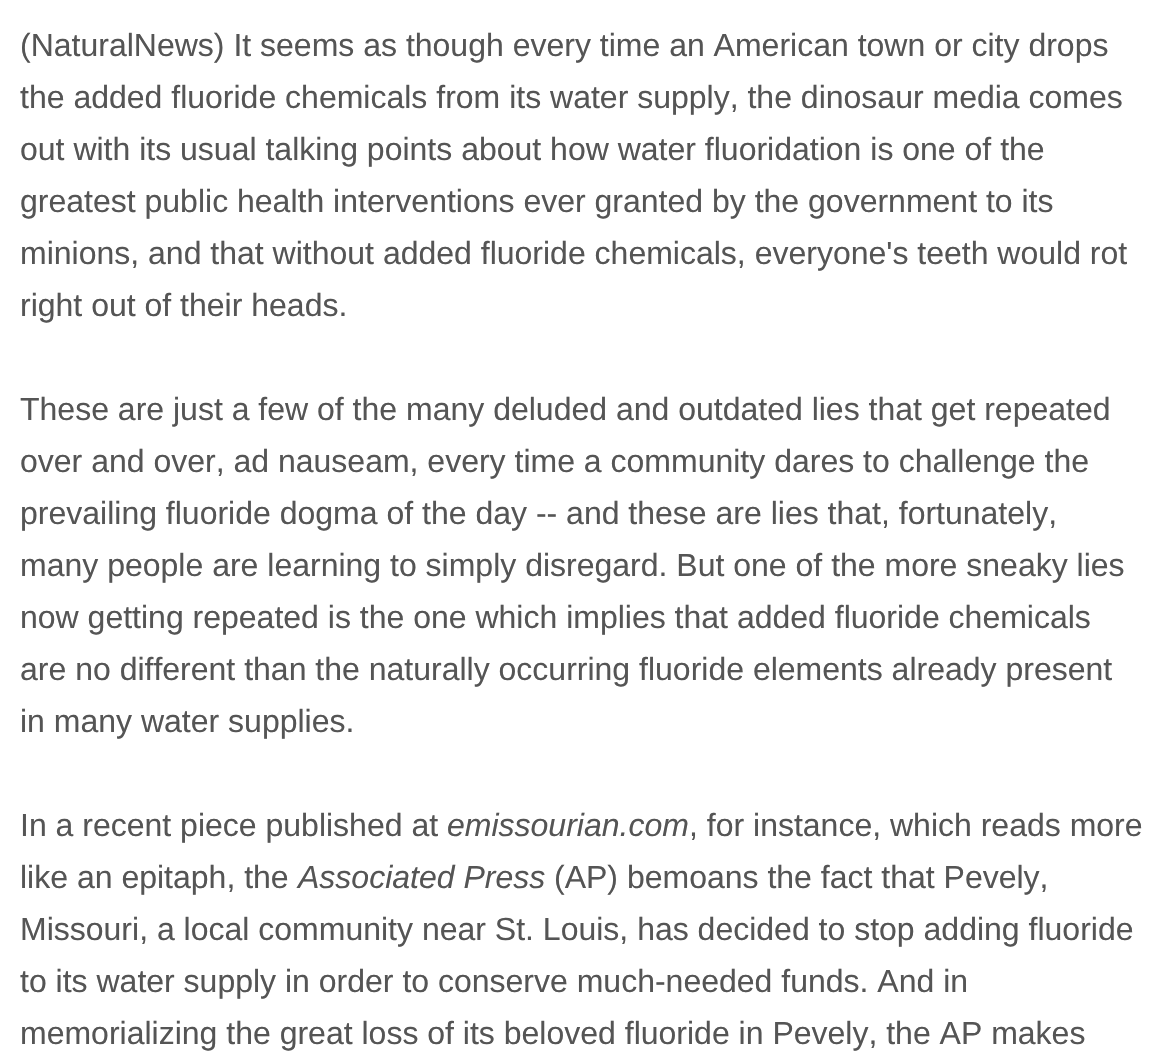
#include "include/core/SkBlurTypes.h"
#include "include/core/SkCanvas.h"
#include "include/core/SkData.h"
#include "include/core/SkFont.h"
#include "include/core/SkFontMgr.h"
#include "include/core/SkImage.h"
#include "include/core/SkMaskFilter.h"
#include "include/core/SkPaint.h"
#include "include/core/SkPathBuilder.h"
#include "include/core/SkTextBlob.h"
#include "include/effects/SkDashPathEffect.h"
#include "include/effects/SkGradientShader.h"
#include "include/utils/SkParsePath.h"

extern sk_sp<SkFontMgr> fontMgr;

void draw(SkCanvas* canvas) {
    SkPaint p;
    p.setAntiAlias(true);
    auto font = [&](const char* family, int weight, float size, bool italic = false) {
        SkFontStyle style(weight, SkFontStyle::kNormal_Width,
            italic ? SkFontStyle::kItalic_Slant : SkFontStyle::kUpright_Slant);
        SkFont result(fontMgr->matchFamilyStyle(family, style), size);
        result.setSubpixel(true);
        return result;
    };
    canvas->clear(0xFFFFFFFF);
    auto font1 = font("Liberation Sans", 400, 32);
    p.setColor(0xFF555555);
    {
        const struct { const char* s; float x, y; } items[] = {
            {"(NaturalNews) It seems as though every time an American town or city drops", 20, 56},
            {"the added fluoride chemicals from its water supply, the dinosaur media comes", 20, 108},
            {"out with its usual talking points about how water fluoridation is one of the", 20, 160},
            {"greatest public health interventions ever granted by the government to its", 20, 212},
            {"minions, and that without added fluoride chemicals, everyone's teeth would rot", 20, 264},
            {"right out of their heads.", 20, 316},
            {"These are just a few of the many deluded and outdated lies that get repeated", 20, 420},
            {"over and over, ad nauseam, every time a community dares to challenge the", 20, 472},
            {"prevailing fluoride dogma of the day -- and these are lies that, fortunately,", 20, 524},
            {"many people are learning to simply disregard. But one of the more sneaky lies", 20, 576},
            {"now getting repeated is the one which implies that added fluoride chemicals", 20, 628},
            {"are no different than the naturally occurring fluoride elements already present", 20, 680},
            {"in many water supplies.", 20, 732},
            {"In a recent piece published at", 20, 836},
        };
        for (auto [s, x, y] : items) {
            canvas->drawString(s, x, y, font1, p);
        }
    }
    auto font2 = font("Liberation Sans", 400, 32, true);
    canvas->drawString("emissourian.com", 447, 836, font2, p);
    canvas->drawString(", for instance, which reads more", 689, 836, font1, p);
    canvas->drawString("like an epitaph, the", 20, 888, font1, p);
    canvas->drawString("Associated Press", 298, 888, font2, p);
    {
        const struct { const char* s; float x, y; } items[] = {
            {"(AP) bemoans the fact that Pevely,", 554, 888},
            {"Missouri, a local community near St. Louis, has decided to stop adding fluoride", 20, 940},
            {"to its water supply in order to conserve much-needed funds. And in", 20, 992},
            {"memorializing the great loss of its beloved fluoride in Pevely, the AP makes", 20, 1044},
        };
        for (auto [s, x, y] : items) {
            canvas->drawString(s, x, y, font1, p);
        }
    }
}
